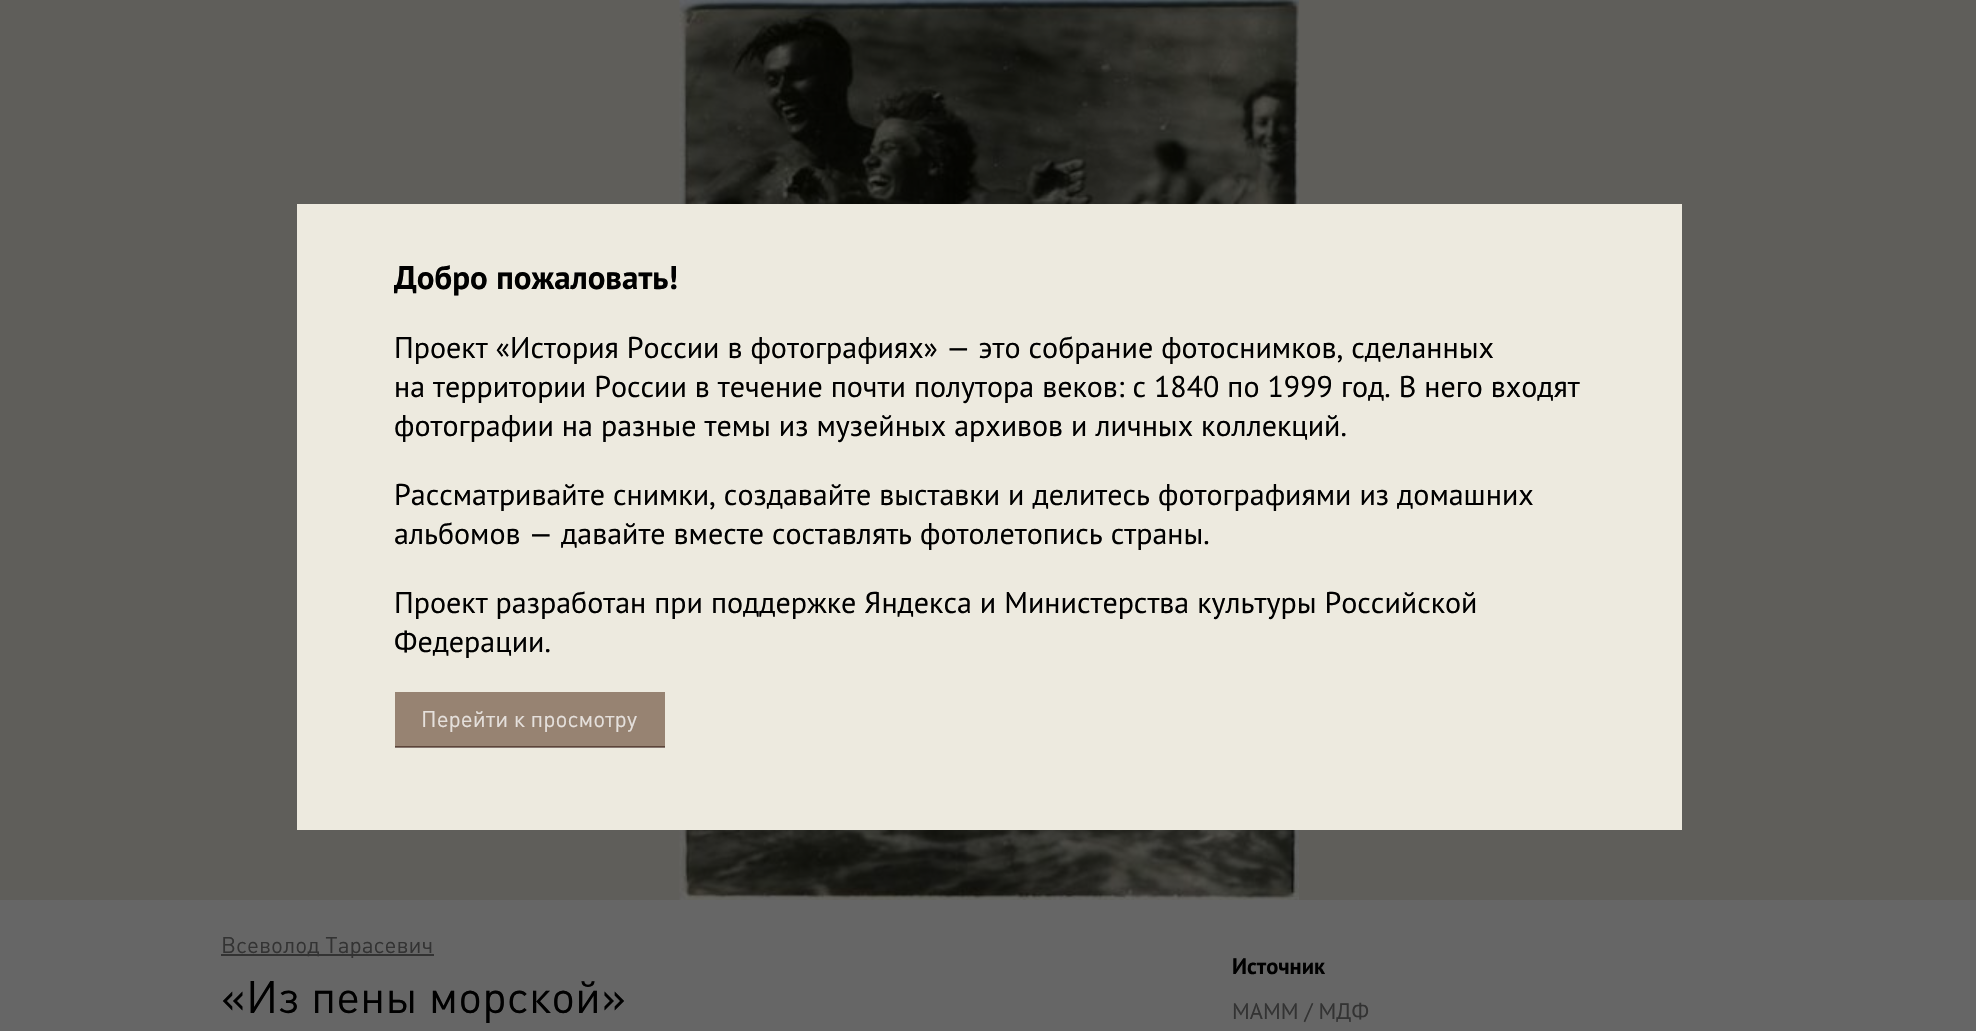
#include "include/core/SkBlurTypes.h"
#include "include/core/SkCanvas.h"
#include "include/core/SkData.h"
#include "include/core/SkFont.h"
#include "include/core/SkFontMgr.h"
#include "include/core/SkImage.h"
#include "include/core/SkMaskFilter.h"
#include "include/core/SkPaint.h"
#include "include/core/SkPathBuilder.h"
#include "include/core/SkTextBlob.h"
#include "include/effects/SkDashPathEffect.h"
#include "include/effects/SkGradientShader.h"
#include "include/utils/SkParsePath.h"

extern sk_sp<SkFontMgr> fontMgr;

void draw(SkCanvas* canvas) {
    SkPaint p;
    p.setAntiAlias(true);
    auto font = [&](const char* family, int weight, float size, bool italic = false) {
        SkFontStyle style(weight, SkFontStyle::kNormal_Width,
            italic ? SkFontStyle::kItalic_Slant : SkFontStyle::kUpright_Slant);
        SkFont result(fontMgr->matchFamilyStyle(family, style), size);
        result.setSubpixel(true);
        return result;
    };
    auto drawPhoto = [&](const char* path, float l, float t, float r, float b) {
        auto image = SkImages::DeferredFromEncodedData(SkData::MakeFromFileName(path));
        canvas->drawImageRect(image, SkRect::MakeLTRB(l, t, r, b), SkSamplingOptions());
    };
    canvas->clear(0xFF5F5E5A);
    drawPhoto("media/1.png", 679, 0, 1299, 900);
    p.setColor(0xFFEDEADF);
    canvas->drawRect(SkRect::MakeLTRB(297, 204, 1682, 830), p);
    p.setColor(0xFF877870);
    canvas->drawRect(SkRect::MakeLTRB(395, 747, 665, 748), p);
    auto font1 = font("PT Sans", 700, 33);
    p.setColor(0xFF000000);
    canvas->drawString("Добро пожаловать!", 394, 289, font1, p);
    auto font2 = font("PT Sans", 400, 30);
    {
        const struct { const char* s; float x, y; } items[] = {
            {"Проект «История России в фотографиях» — это собрание фотоснимков, сделанных", 394, 358},
            {"на территории России в течение почти полутора веков: с 1840 по 1999 год. В него входят", 394, 397},
            {"фотографии на разные темы из музейных архивов и личных коллекций.", 394, 436},
            {"Рассматривайте снимки, создавайте выставки и делитесь фотографиями из домашних", 394, 505},
            {"альбомов — давайте вместе составлять фотолетопись страны.", 394, 544},
            {"Проект разработан при поддержке Яндекса и Министерства культуры Российской", 394, 613},
            {"Федерации.", 394, 652},
        };
        for (auto [s, x, y] : items) {
            canvas->drawString(s, x, y, font2, p);
        }
    }
    p.setColor(0xFF978372);
    canvas->drawRect(SkRect::MakeLTRB(395, 692, 665, 746), p);
    p.setColor(0xFF5C4539);
    canvas->drawRect(SkRect::MakeLTRB(395, 746, 665, 747), p);
    auto font3 = font("DIN", 400, 22.5f);
    p.setColor(0xFFE5E0DC);
    canvas->drawString("Перейти к просмотру", 421, 727, font3, p);
    p.setColor(0xFF666666);
    canvas->drawRect(SkRect::MakeLTRB(0, 900, 1976, 1031), p);
    p.setColor(0xFF333333);
    canvas->drawRect(SkRect::MakeLTRB(221, 954, 434, 956), p);
    canvas->drawString("Всеволод Тарасевич", 221, 953, font3, p);
    auto font4 = font("DIN", 400, 45);
    p.setColor(0xFF000000);
    canvas->drawString("«Из пены морской»", 221, 1013, font4, p);
    auto font5 = font("PT Sans", 700, 22.5f);
    canvas->drawString("Источник", 1232, 974, font5, p);
    auto font6 = font("PT Sans", 400, 22.5f);
    p.setColor(0xFF333333);
    canvas->drawString("МАММ / МДФ", 1232, 1019, font6, p);
}
